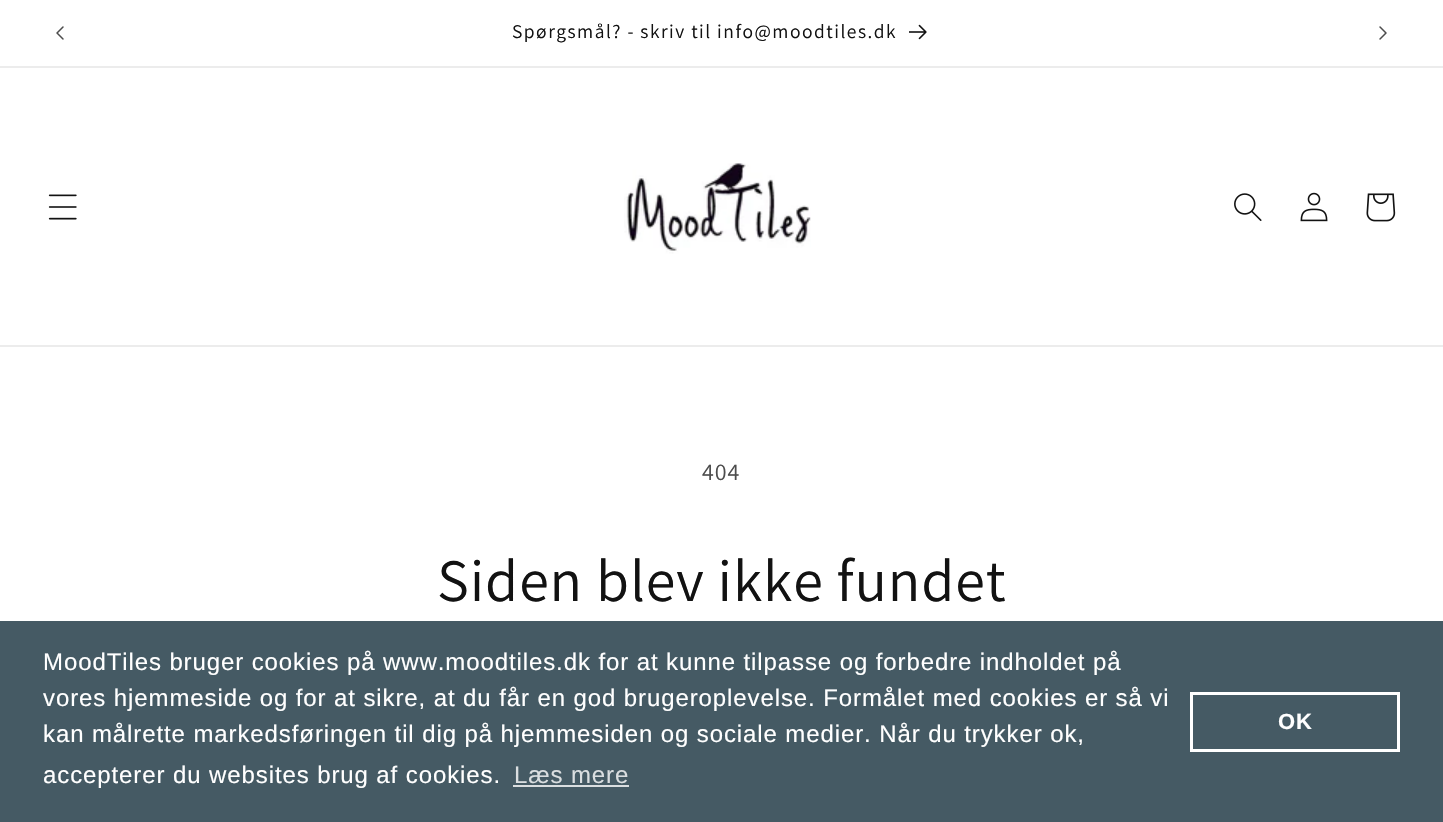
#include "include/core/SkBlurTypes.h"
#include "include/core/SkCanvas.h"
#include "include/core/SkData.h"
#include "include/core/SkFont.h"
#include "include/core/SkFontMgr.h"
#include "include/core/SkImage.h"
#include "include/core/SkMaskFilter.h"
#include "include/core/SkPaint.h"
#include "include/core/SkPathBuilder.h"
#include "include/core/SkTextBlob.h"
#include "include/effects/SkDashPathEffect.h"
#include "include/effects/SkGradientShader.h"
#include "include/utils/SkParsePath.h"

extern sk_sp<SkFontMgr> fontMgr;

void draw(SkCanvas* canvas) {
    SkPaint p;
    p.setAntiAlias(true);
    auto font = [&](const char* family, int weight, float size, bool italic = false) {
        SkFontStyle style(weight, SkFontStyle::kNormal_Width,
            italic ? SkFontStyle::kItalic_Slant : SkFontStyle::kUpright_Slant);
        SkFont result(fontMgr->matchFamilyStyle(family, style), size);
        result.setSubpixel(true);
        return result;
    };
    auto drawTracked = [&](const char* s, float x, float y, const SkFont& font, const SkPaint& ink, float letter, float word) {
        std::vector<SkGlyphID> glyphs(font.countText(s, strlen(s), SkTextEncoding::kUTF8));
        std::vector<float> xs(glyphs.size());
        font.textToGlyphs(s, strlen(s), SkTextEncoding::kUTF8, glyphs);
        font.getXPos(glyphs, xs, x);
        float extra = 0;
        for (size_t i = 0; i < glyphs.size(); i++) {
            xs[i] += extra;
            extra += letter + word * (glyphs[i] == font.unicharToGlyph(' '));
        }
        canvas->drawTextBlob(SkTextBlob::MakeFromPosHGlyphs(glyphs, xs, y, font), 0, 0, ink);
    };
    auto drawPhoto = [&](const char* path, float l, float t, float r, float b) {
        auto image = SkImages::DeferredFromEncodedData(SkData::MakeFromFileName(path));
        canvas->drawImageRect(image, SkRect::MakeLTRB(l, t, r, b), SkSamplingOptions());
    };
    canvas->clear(0xFFFFFFFF);
    p.setColor(0xFFECECEC);
    canvas->drawRect(SkRect::MakeLTRB(0, 66, 1443, 68), p);
    drawPhoto("media/1.png", 56, 26, 64, 40);
    auto font1 = font("Assistant", 400, 19.5f);
    p.setColor(0xFF121212);
    drawTracked("Spørgsmål? - skriv til info@moodtiles.dk", 512, 38, font1, p, 1.5f, 0);
    drawPhoto("media/2.png", 909, 24, 927, 40);
    drawPhoto("media/3.png", 1379, 26, 1387, 40);
    p.setColor(0xFFECECEC);
    canvas->drawRect(SkRect::MakeLTRB(0, 345, 1443, 347), p);
    drawPhoto("media/4.png", 48, 194, 77, 220);
    drawPhoto("media/5.png", 624, 163, 811, 254);
    drawPhoto("media/6.png", 1234, 193, 1262, 221);
    drawPhoto("media/7.png", 1300, 192, 1328, 222);
    drawPhoto("media/8.png", 1366, 193, 1396, 222);
    auto font2 = font("Assistant", 400, 24);
    p.setColor(0xFF4D4D4D);
    drawTracked("404", 702, 480, font2, p, 0.9f, 0);
    auto font3 = font("Assistant", 400, 60);
    p.setColor(0xFF121212);
    drawTracked("Siden blev ikke fundet", 437, 601, font3, p, 0.9f, 0);
    p.setColor(0xFF455A64);
    canvas->drawRect(SkRect::MakeLTRB(0, 621, 1443, 822), p);
    auto font4 = font("Liberation Sans", 400, 24);
    p.setColor(0xFFFFFFFF);
    {
        const struct { const char* s; float x, y; } items[] = {
            {"MoodTiles bruger cookies på www.moodtiles.dk for at kunne tilpasse og forbedre indholdet på", 43, 670},
            {"vores hjemmeside og for at sikre, at du får en god brugeroplevelse. Formålet med cookies er så vi", 43, 706},
            {"kan målrette markedsføringen til dig på hjemmesiden og sociale medier. Når du trykker ok,", 43, 742},
            {"accepterer du websites brug af cookies.", 43, 783},
        };
        for (auto [s, x, y] : items) {
            drawTracked(s, x, y, font4, p, 0.9f, 0);
        }
    }
    p.setColor(0xFFDADEE0);
    drawTracked("Læs mere", 514, 783, font4, p, 0.9f, 0);
    canvas->drawRect(SkRect::MakeLTRB(513, 785, 629, 787), p);
    p.setStyle(SkPaint::kStroke_Style);
    p.setStrokeWidth(3);
    p.setColor(0xFFFFFFFF);
    canvas->drawRect(SkRect::MakeLTRB(1191.5f, 693.5f, 1398.5f, 750.5f), p);
    auto font5 = font("Liberation Sans", 700, 22);
    p.setStyle(SkPaint::kFill_Style);
    drawTracked("OK", 1278, 729, font5, p, 0.9f, 0);
}
